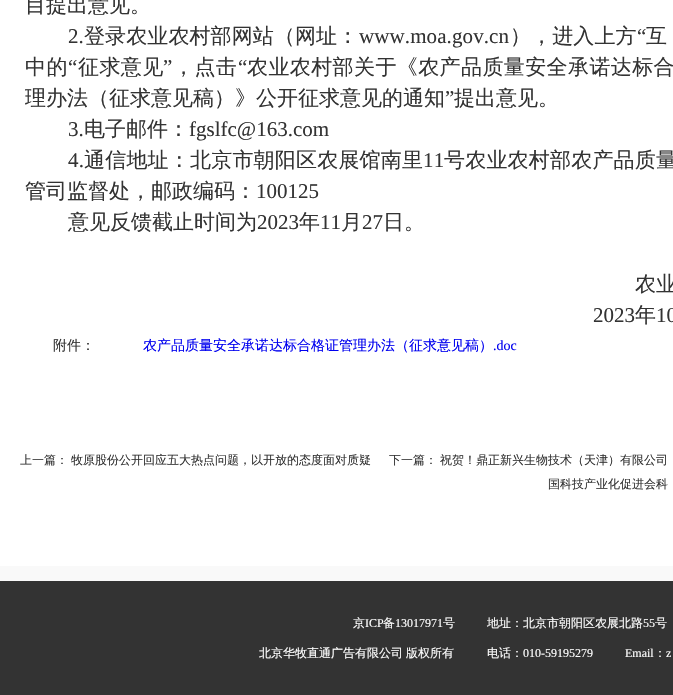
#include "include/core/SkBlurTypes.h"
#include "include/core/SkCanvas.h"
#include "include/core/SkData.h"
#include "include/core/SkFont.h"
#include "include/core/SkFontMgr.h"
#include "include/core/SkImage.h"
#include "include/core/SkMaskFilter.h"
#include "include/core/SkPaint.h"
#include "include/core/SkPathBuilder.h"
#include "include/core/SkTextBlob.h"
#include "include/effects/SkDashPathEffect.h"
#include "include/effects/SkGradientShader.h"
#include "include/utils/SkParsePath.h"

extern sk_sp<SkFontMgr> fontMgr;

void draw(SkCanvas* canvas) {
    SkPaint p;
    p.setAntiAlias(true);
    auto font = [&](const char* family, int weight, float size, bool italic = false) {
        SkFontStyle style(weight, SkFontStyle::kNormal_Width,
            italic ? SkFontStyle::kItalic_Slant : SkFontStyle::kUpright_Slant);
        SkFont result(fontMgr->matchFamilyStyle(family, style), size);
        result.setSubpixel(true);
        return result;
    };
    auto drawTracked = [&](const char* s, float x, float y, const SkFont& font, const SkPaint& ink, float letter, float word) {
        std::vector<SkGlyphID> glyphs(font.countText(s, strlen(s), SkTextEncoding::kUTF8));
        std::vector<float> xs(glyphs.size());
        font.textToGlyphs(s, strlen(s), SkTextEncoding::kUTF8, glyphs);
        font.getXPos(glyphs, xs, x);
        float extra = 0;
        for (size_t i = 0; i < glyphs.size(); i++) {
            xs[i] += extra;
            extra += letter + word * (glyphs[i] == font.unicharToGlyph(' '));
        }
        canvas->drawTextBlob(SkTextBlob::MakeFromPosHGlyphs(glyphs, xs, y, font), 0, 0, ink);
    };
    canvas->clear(0xFFF9F9F9);
    p.setColor(0xFFFFFFFF);
    canvas->drawRect(SkRect::MakeLTRB(0, 0, 673, 566), p);
    auto font1 = font("WenQuanYi Zen Hei", 500, 21);
    p.setColor(0xFF333333);
    canvas->drawString("目提出意见。", 25, 12, font1, p);
    auto font2 = font("Liberation Serif", 400, 21);
    drawTracked("2.", 68, 43, font2, p, 0.1f, 0);
    drawTracked("登录农业农村部网站（网址：", 84, 43, font1, p, 0.1f, 0);
    drawTracked("www.moa.gov.cn", 359, 43, font2, p, 0.1f, 0);
    drawTracked("），进入上方", 510, 43, font1, p, 0.1f, 0);
    drawTracked("“", 637, 43, font2, p, 0.1f, 0);
    drawTracked("互", 646, 43, font1, p, 0.1f, 0);
    drawTracked("中的", 25, 74, font1, p, 0.4f, 0);
    drawTracked("“", 68, 74, font2, p, 0.4f, 0);
    drawTracked("征求意见", 78, 74, font1, p, 0.4f, 0);
    drawTracked("”", 163, 74, font2, p, 0.4f, 0);
    drawTracked("，点击", 173, 74, font1, p, 0.4f, 0);
    drawTracked("“", 238, 74, font2, p, 0.4f, 0);
    drawTracked("农业农村部关于《农产品质量安全承诺达标合", 247, 74, font1, p, 0.4f, 0);
    canvas->drawString("理办法（征求意见稿）》公开征求意见的通知", 25, 105, font1, p);
    canvas->drawString("”", 445, 105, font2, p);
    canvas->drawString("提出意见。", 454, 105, font1, p);
    canvas->drawString("3.", 68, 136, font2, p);
    canvas->drawString("电子邮件：", 84, 136, font1, p);
    canvas->drawString("fgslfc@163.com", 189, 136, font2, p);
    drawTracked("4.", 68, 167, font2, p, 0.2f, 0);
    drawTracked("通信地址：北京市朝阳区农展馆南里", 84, 167, font1, p, 0.2f, 0);
    drawTracked("11", 423, 167, font2, p, 0.2f, 0);
    drawTracked("号农业农村部农产品质量", 444, 167, font1, p, 0.2f, 0);
    canvas->drawString("管司监督处，邮政编码：", 25, 198, font1, p);
    canvas->drawString("100125", 256, 198, font2, p);
    canvas->drawString("意见反馈截止时间为", 68, 229, font1, p);
    canvas->drawString("2023", 257, 229, font2, p);
    canvas->drawString("年", 299, 229, font1, p);
    canvas->drawString("11", 320, 229, font2, p);
    canvas->drawString("月", 341, 229, font1, p);
    canvas->drawString("27", 362, 229, font2, p);
    canvas->drawString("日。", 383, 229, font1, p);
    canvas->drawString("农业", 635, 291, font1, p);
    canvas->drawString("2023", 593, 322, font2, p);
    canvas->drawString("年", 635, 322, font1, p);
    canvas->drawString("10", 656, 322, font2, p);
    auto font3 = font("WenQuanYi Zen Hei", 500, 14);
    canvas->drawString("附件：", 53, 350, font3, p);
    p.setColor(0xFF0000EF);
    canvas->drawString("农产品质量安全承诺达标合格证管理办法（征求意见稿）", 143, 350, font3, p);
    auto font4 = font("Liberation Serif", 400, 14);
    canvas->drawString(".doc", 493, 350, font4, p);
    auto font5 = font("WenQuanYi Zen Hei", 500, 12);
    p.setColor(0xFF333333);
    {
        const struct { const char* s; float x, y; } items[] = {
            {"上一篇：", 20, 464},
            {"牧原股份公开回应五大热点问题，以开放的态度面对质疑", 71, 464},
            {"下一篇：", 389, 464},
            {"祝贺！鼎正新兴生物技术（天津）有限公司", 440, 464},
            {"国科技产业化促进会科", 548, 488},
        };
        for (auto [s, x, y] : items) {
            canvas->drawString(s, x, y, font5, p);
        }
    }
    canvas->drawRect(SkRect::MakeLTRB(0, 581, 673, 695), p);
    p.setColor(0xFFFFFFFF);
    canvas->drawString("京", 353, 627, font5, p);
    auto font6 = font("Liberation Serif", 400, 12);
    canvas->drawString("ICP", 365, 627, font6, p);
    canvas->drawString("备", 383, 627, font5, p);
    canvas->drawString("13017971", 395, 627, font6, p);
    canvas->drawString("号", 443, 627, font5, p);
    canvas->drawString("地址：北京市朝阳区农展北路", 487, 627, font5, p);
    canvas->drawString("55", 643, 627, font6, p);
    {
        const struct { const char* s; float x, y; } items[] = {
            {"号", 655, 627},
            {"北京华牧直通广告有限公司", 259, 657},
            {"版权所有", 406, 657},
            {"电话：", 487, 657},
        };
        for (auto [s, x, y] : items) {
            canvas->drawString(s, x, y, font5, p);
        }
    }
    canvas->drawString("010-59195279", 523, 657, font6, p);
    canvas->drawString("Email", 625, 657, font6, p);
    canvas->drawString("：", 654, 657, font5, p);
    canvas->drawString("z", 666, 657, font6, p);
}
